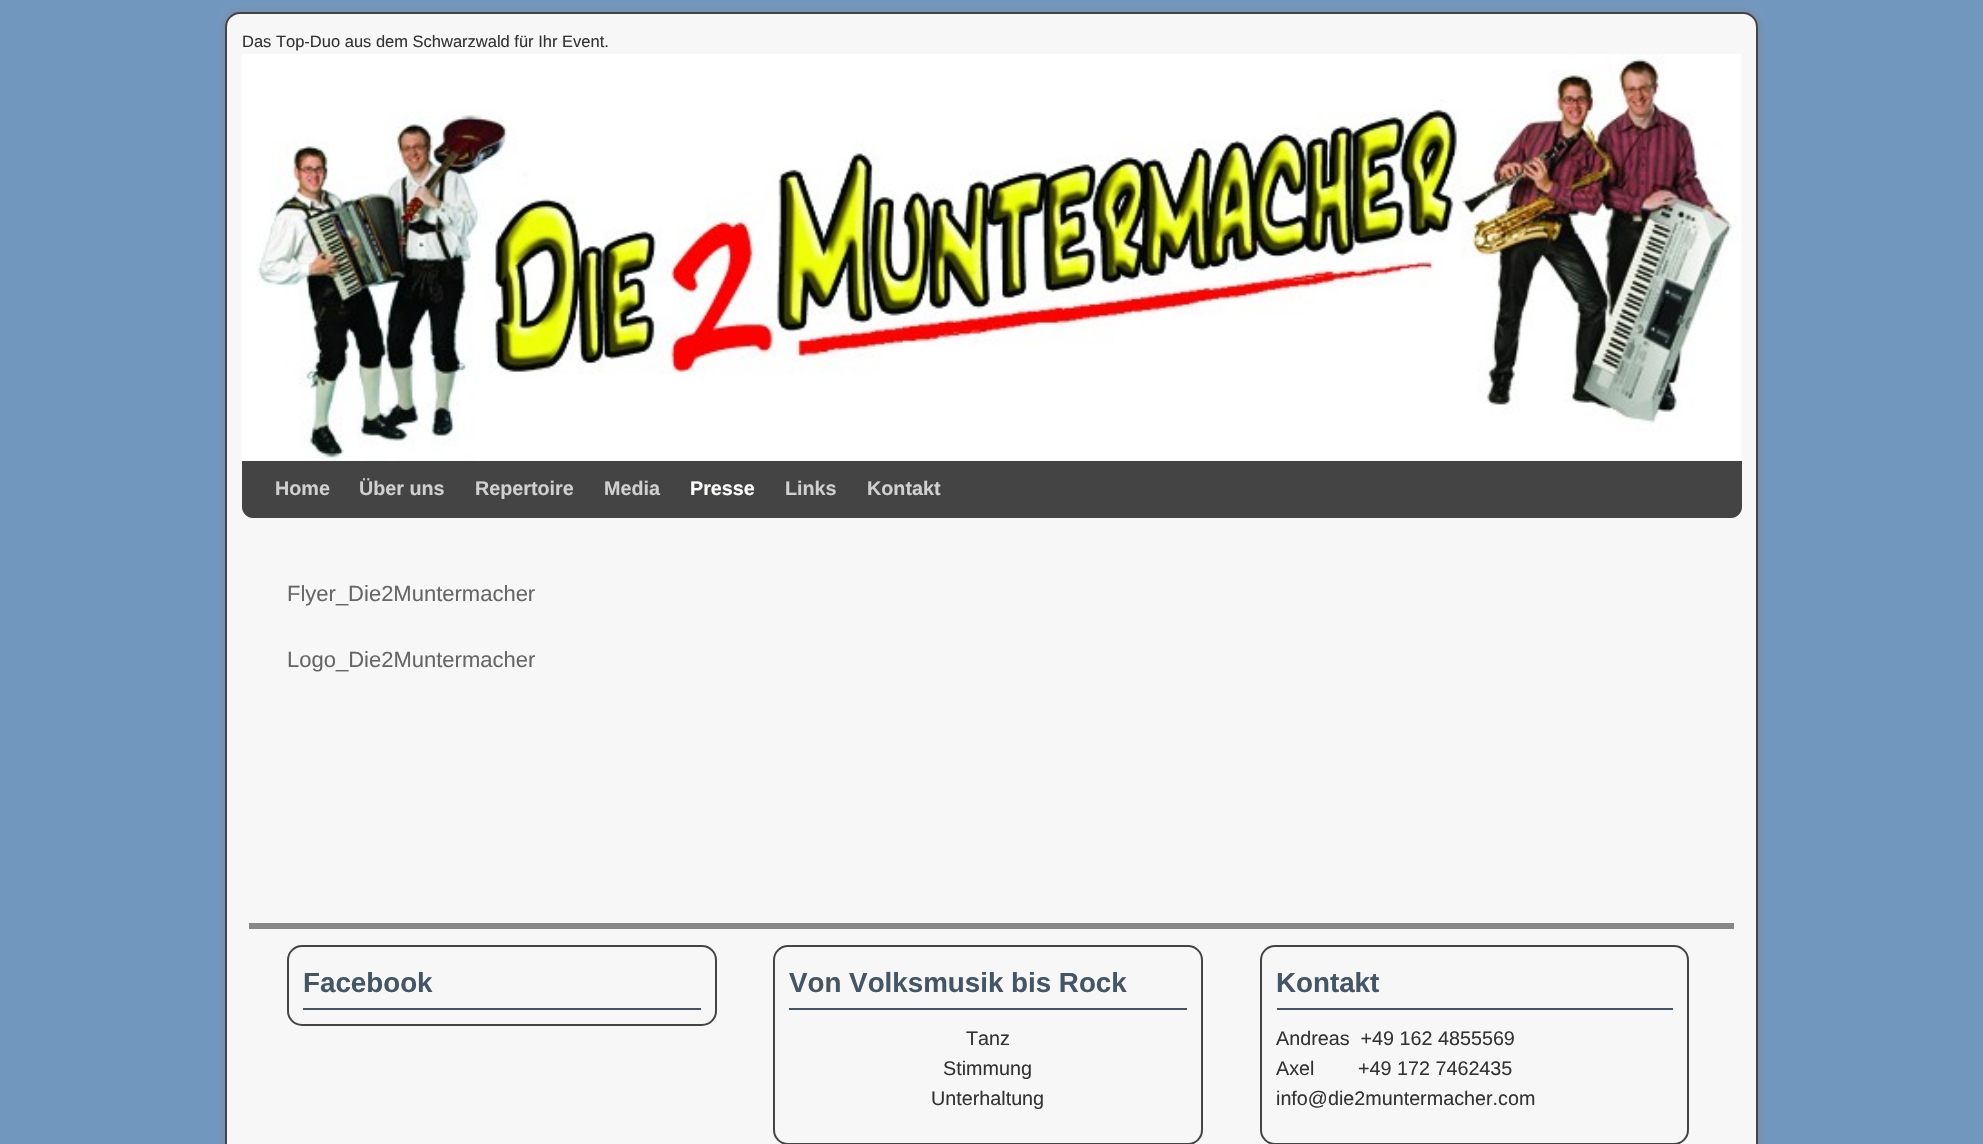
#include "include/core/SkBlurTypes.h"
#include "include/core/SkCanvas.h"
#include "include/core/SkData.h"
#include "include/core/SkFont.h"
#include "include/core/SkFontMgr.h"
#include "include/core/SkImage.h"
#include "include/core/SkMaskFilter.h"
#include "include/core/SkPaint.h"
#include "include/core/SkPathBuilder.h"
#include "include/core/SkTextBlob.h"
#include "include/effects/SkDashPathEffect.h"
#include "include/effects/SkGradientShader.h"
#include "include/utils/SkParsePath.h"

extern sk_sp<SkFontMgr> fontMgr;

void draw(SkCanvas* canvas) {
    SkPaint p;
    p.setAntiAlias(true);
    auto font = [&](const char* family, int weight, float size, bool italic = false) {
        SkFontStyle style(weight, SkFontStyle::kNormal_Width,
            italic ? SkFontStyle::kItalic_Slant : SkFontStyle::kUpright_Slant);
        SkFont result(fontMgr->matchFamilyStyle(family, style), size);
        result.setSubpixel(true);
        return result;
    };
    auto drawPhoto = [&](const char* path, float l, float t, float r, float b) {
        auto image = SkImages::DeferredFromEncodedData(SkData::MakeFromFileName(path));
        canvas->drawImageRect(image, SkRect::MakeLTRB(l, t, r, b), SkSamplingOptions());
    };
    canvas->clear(0xFF7297BF);
    p.setColor(0x407F7F7F);
    p.setMaskFilter(SkMaskFilter::MakeBlur(kNormal_SkBlurStyle, 2));
    canvas->drawRoundRect(SkRect::MakeLTRB(221, 8, 1763, 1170), 20, 20, p);
    p.setMaskFilter(nullptr);
    p.setColor(0xFFF7F7F7);
    canvas->drawRoundRect(SkRect::MakeLTRB(226, 13, 1757, 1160), 14, 14, p);
    p.setStyle(SkPaint::kStroke_Style);
    p.setStrokeWidth(2);
    p.setColor(0xFF444444);
    canvas->drawRoundRect(SkRect::MakeLTRB(226, 13, 1757, 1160), 14, 14, p);
    auto font1 = font("Liberation Sans", 400, 16.5f);
    p.setStyle(SkPaint::kFill_Style);
    p.setColor(0xFF333333);
    canvas->drawString("Das Top-Duo aus dem Schwarzwald für Ihr Event.", 242, 47, font1, p);
    drawPhoto("media/1.png", 241, 54, 1742, 461);
    p.setColor(0xFF444444);
    canvas->drawPath(SkPathBuilder().moveTo(242, 461).lineTo(1742, 461).lineTo(1742, 507).cubicTo(1742, 513, 1737, 518, 1731, 518).lineTo(253, 518).cubicTo(247, 518, 242, 513, 242, 507).close().detach(), p);
    auto font2 = font("Liberation Sans", 700, 19.75f);
    p.setColor(0xFFD0D0D0);
    {
        const struct { const char* s; float x, y; } items[] = {
            {"Home", 275, 495},
            {"Über uns", 359, 495},
            {"Repertoire", 475, 495},
            {"Media", 604, 495},
        };
        for (auto [s, x, y] : items) {
            canvas->drawString(s, x, y, font2, p);
        }
    }
    p.setColor(0xFFFFFFFE);
    canvas->drawString("Presse", 690, 495, font2, p);
    p.setColor(0xFFD0D0D0);
    canvas->drawString("Links", 785, 495, font2, p);
    canvas->drawString("Kontakt", 867, 495, font2, p);
    auto font3 = font("Liberation Sans", 400, 22);
    p.setColor(0xFF666666);
    canvas->drawString("Flyer_Die2Muntermacher", 287, 601, font3, p);
    canvas->drawString("Logo_Die2Muntermacher", 287, 667, font3, p);
    p.setColor(0xFF888888);
    canvas->drawRect(SkRect::MakeLTRB(249, 923, 1734, 929), p);
    p.setStyle(SkPaint::kStroke_Style);
    p.setColor(0xFF444444);
    canvas->drawRoundRect(SkRect::MakeLTRB(288, 946, 716, 1025), 14, 14, p);
    p.setStyle(SkPaint::kFill_Style);
    p.setColor(0xFF445566);
    canvas->drawRect(SkRect::MakeLTRB(303, 1008, 701, 1010), p);
    auto font4 = font("Liberation Sans", 700, 27.75f);
    canvas->drawString("Facebook", 303, 992, font4, p);
    p.setStyle(SkPaint::kStroke_Style);
    p.setColor(0xFF444444);
    canvas->drawRoundRect(SkRect::MakeLTRB(774, 946, 1202, 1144), 14, 14, p);
    p.setStyle(SkPaint::kFill_Style);
    p.setColor(0xFF445566);
    canvas->drawRect(SkRect::MakeLTRB(789, 1008, 1187, 1010), p);
    canvas->drawString("Von Volksmusik bis Rock", 789, 992, font4, p);
    auto font5 = font("Liberation Sans", 400, 19.75f);
    p.setColor(0xFF333333);
    {
        const struct { const char* s; float x, y; } items[] = {
            {"Tanz", 966, 1045},
            {"Stimmung", 943, 1075},
            {"Unterhaltung", 931, 1105},
        };
        for (auto [s, x, y] : items) {
            canvas->drawString(s, x, y, font5, p);
        }
    }
    p.setStyle(SkPaint::kStroke_Style);
    p.setColor(0xFF444444);
    canvas->drawRoundRect(SkRect::MakeLTRB(1261, 946, 1688, 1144), 14, 14, p);
    p.setStyle(SkPaint::kFill_Style);
    p.setColor(0xFF445566);
    canvas->drawRect(SkRect::MakeLTRB(1277, 1008, 1673, 1010), p);
    canvas->drawString("Kontakt", 1276, 992, font4, p);
    p.setColor(0xFF333333);
    {
        const struct { const char* s; float x, y; } items[] = {
            {"Andreas  +49 162 4855569", 1276, 1045},
            {"Axel", 1276, 1075},
            {"+49 172 7462435", 1358, 1075},
            {"info@die2muntermacher.com", 1276, 1105},
        };
        for (auto [s, x, y] : items) {
            canvas->drawString(s, x, y, font5, p);
        }
    }
}
